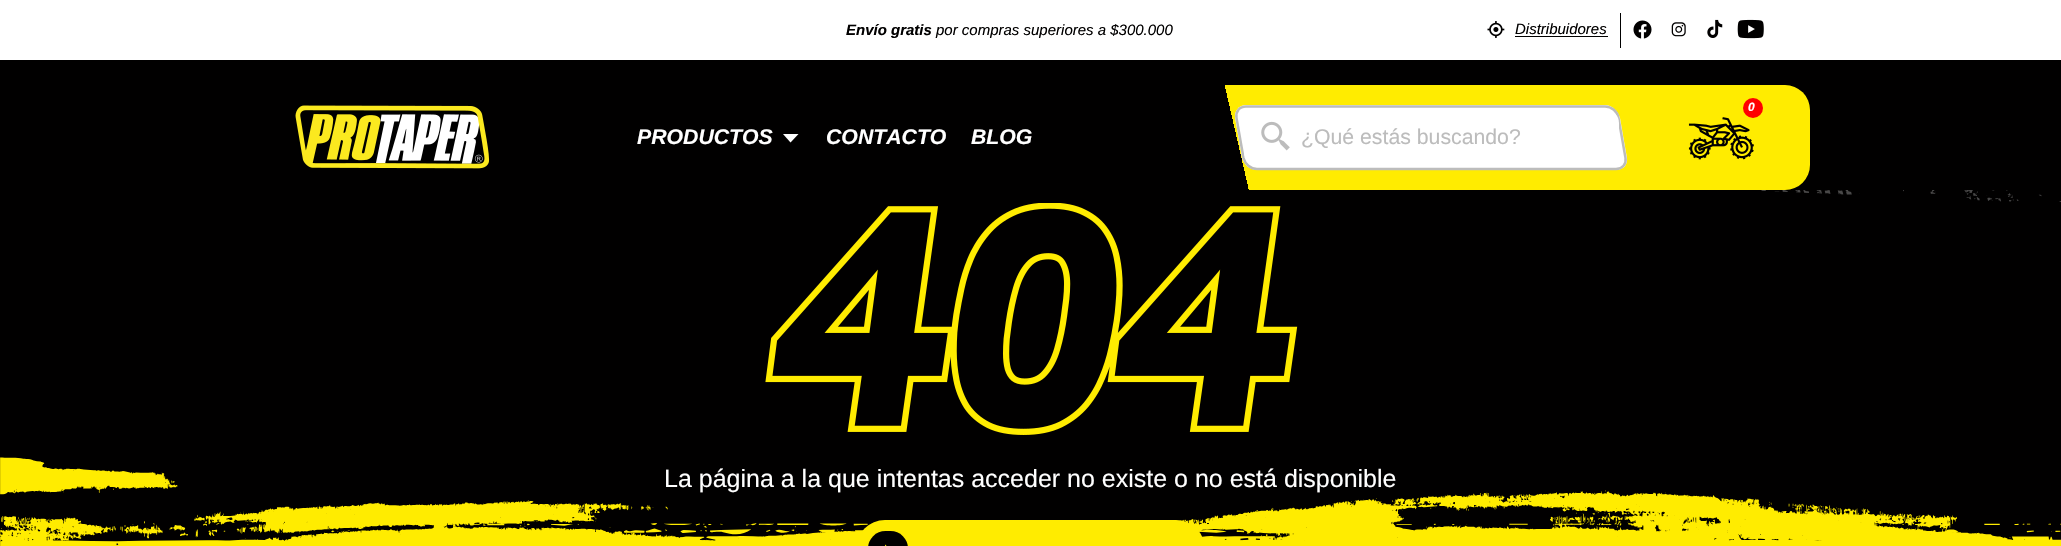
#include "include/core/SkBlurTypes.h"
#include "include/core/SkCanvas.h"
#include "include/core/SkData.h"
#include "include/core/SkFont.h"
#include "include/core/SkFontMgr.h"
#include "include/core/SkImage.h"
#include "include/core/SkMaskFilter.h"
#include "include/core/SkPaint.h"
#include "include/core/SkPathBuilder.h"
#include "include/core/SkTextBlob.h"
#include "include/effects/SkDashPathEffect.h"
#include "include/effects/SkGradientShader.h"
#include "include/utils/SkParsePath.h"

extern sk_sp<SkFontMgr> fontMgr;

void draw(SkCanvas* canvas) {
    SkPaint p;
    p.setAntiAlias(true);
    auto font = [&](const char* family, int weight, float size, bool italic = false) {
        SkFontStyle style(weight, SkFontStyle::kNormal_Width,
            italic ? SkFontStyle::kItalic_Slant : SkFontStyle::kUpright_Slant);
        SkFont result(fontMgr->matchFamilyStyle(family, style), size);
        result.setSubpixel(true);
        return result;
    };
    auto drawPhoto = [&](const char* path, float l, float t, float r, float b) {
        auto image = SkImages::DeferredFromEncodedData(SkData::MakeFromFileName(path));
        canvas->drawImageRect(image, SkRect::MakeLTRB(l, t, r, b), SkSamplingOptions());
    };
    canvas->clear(0xFF010000);
    drawPhoto("media/1.png", 0, 457, 2061, 546);
    p.setColor(0xFFFFFFFF);
    canvas->drawRect(SkRect::MakeLTRB(0, 0, 2061, 60), p);
    auto font1 = font("Liberation Sans", 700, 15, true);
    p.setColor(0xFF010000);
    canvas->drawString("Envío gratis", 846, 35, font1, p);
    auto font2 = font("Liberation Sans", 400, 15, true);
    canvas->drawString("por compras superiores a $300.000", 936, 35, font2, p);
    drawPhoto("media/2.png", 1487, 21, 1505, 38);
    canvas->drawString("Distribuidores", 1515, 34, font2, p);
    canvas->drawRect(SkRect::MakeLTRB(1515, 36, 1608, 37), p);
    p.setColor(0xFF000000);
    canvas->drawRect(SkRect::MakeLTRB(1620, 13, 1621, 48), p);
    drawPhoto("media/3.png", 1633, 20, 1652, 39);
    drawPhoto("media/4.png", 1671, 22, 1686, 37);
    drawPhoto("media/5.png", 1707, 19, 1723, 38);
    drawPhoto("media/6.png", 1737, 19, 1764, 39);
    {
        const SkColor colors[] = {0xFF010000, 0xFFFFEC00};
        const float stops[] = {0.63f, 0.63f};
        const SkPoint ends[] = {{280, 311}, {1782, -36}};
        p.setShader(SkGradientShader::MakeLinear(ends, colors, stops, 2, SkTileMode::kClamp));
        p.setAlpha(255);
    }
    canvas->drawRoundRect(SkRect::MakeLTRB(253, 85, 1810, 190), 25, 25, p);
    drawPhoto("media/7.png", 295, 105, 490, 169);
    auto font3 = font("Liberation Sans", 700, 21.25f, true);
    p.setShader(nullptr);
    p.setColor(0xFFFFFFFF);
    canvas->drawString("PRODUCTOS", 637, 144, font3, p);
    canvas->drawPath(SkPathBuilder().moveTo(790.5f, 142.5f).lineTo(798.5f, 134).lineTo(783, 134).close().detach(), p);
    canvas->drawString("CONTACTO", 826, 144, font3, p);
    canvas->drawString("BLOG", 971, 144, font3, p);
    canvas->drawPath(SkPathBuilder().moveTo(1246, 105).lineTo(1605, 105).cubicTo(1612, 105, 1618, 111, 1620, 118).lineTo(1627, 158).cubicTo(1628, 165, 1623, 170, 1616, 170).lineTo(1257, 170).cubicTo(1250, 170, 1244, 165, 1242, 158).lineTo(1235, 118).cubicTo(1234, 111, 1239, 105, 1246, 105).close().detach(), p);
    p.setStyle(SkPaint::kStroke_Style);
    p.setStrokeWidth(2.5f);
    p.setColor(0xFFBCBCBC);
    canvas->drawPath(SkPathBuilder().moveTo(1246, 106.5f).lineTo(1605, 106.5f).cubicTo(1611.5f, 106.5f, 1617.5f, 111.5f, 1618.5f, 118).lineTo(1625.5f, 158).cubicTo(1626.5f, 164, 1622.5f, 169, 1616, 169).lineTo(1257, 169).cubicTo(1250.5f, 169, 1245, 164, 1243.5f, 158).lineTo(1236.5f, 118).cubicTo(1235.5f, 111.5f, 1239.5f, 106.5f, 1246, 106.5f).close().detach(), p);
    p.setStyle(SkPaint::kFill_Style);
    p.setColor(0xFFFFFFFF);
    canvas->drawRoundRect(SkRect::MakeLTRB(1244, 110, 1619, 165), 13, 13, p);
    drawPhoto("media/8.png", 1261, 121, 1290, 151);
    auto font4 = font("Liberation Sans", 400, 21.25f);
    p.setColor(0xFFBCBCBC);
    canvas->drawString("¿Qué estás buscando?", 1301, 144, font4, p);
    drawPhoto("media/9.png", 1688, 117, 1754, 160);
    p.setColor(0xFFFF0000);
    canvas->drawCircle(1753, 108, 10, p);
    auto font5 = font("Liberation Sans", 700, 12, true);
    p.setColor(0xFFFFFFFF);
    canvas->drawString("0", 1748, 111, font5, p);
    drawPhoto("media/10.png", 1761, 190, 2061, 202);
    drawPhoto("media/11.png", 765, 203, 1298, 435);
    auto font6 = font("Liberation Sans", 400, 25);
    canvas->drawString("La página a la que intentas acceder no existe o no está disponible", 664, 487, font6, p);
    p.setColor(0xFFFFEC00);
    canvas->drawRoundRect(SkRect::MakeLTRB(856, 520, 1205, 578), 31.5f, 31.5f, p);
    p.setColor(0xFF000000);
    canvas->drawRoundRect(SkRect::MakeLTRB(868, 531, 908, 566), 20, 20, p);
    p.setColor(0xFFFFEC00);
    canvas->drawPath(SkPathBuilder().moveTo(885, 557).lineTo(892, 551).lineTo(885, 544.5f).close().detach(), p);
}
